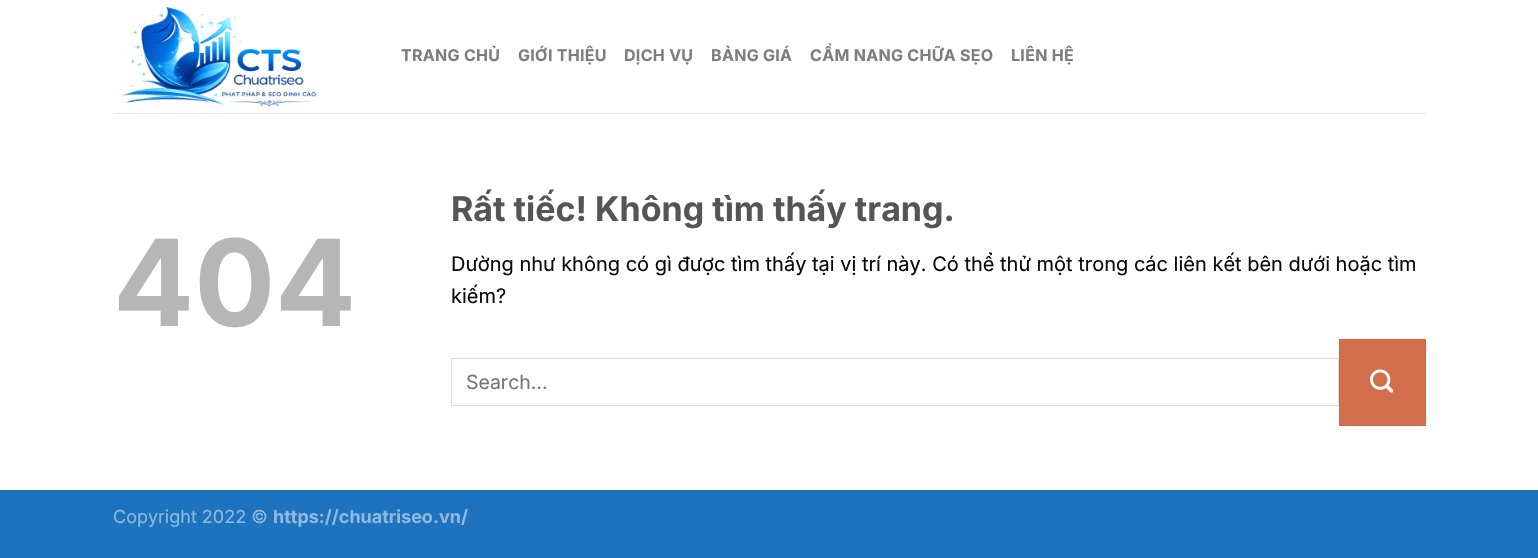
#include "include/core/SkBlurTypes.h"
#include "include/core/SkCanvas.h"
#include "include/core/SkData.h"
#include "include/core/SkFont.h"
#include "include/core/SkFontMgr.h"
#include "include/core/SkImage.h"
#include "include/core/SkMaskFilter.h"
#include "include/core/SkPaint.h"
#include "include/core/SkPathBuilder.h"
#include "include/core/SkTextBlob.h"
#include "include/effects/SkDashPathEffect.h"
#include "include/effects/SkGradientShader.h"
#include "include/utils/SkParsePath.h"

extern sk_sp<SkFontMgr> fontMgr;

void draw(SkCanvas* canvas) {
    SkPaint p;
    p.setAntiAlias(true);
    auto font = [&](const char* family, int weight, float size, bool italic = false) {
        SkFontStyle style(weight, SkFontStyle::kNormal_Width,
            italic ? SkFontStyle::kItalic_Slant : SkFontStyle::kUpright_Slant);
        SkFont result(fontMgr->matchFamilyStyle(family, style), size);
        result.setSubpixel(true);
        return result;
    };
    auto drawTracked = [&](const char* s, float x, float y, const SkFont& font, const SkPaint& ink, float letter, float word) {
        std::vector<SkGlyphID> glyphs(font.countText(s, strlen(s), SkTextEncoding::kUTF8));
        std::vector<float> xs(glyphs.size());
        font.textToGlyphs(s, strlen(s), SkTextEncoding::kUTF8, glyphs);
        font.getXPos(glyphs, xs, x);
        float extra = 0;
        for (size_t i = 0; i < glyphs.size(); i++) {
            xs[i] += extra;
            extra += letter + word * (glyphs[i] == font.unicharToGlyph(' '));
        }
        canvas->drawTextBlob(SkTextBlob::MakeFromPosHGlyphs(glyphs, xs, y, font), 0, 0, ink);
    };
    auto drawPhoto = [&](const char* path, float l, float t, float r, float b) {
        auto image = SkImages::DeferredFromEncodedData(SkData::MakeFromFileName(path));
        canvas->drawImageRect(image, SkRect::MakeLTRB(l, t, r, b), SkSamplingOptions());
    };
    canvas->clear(0xFF1E73BE);
    p.setColor(0xFFFFFFFF);
    canvas->drawRect(SkRect::MakeLTRB(0, 0, 1538, 490), p);
    drawPhoto("media/1.png", 121, 6, 317, 107);
    auto font1 = font("Inter", 700, 16);
    p.setColor(0xFF7D7D7D);
    {
        const struct { const char* s; float x, y; } items[] = {
            {"TRANG CHỦ", 401, 61},
            {"GIỚI THIỆU", 518, 61},
            {"DỊCH VỤ", 624, 61},
            {"BẢNG GIÁ", 711, 61},
            {"CẨM NANG CHỮA SẸO", 810, 61},
            {"LIÊN HỆ", 1011, 61},
        };
        for (auto [s, x, y] : items) {
            drawTracked(s, x, y, font1, p, 0.3f, 0);
        }
    }
    p.setColor(0xFFE7E7E7);
    canvas->drawRect(SkRect::MakeLTRB(114, 113, 1426, 114), p);
    auto font2 = font("Inter", 700, 120);
    p.setColor(0xFFB6B6B6);
    canvas->drawString("404", 113, 326, font2, p);
    auto font3 = font("Inter", 700, 34);
    p.setColor(0xFF555555);
    canvas->drawString("Rất tiếc! Không tìm thấy trang.", 451, 221, font3, p);
    auto font4 = font("Inter", 400, 20);
    p.setColor(0xFF0A0A0A);
    canvas->drawString("Dường như không có gì được tìm thấy tại vị trí này. Có thể thử một trong các liên kết bên dưới hoặc tìm", 451, 271, font4, p);
    canvas->drawString("kiếm?", 451, 303, font4, p);
    p.setStyle(SkPaint::kStroke_Style);
    p.setStrokeWidth(1);
    p.setColor(0xFFDDDDDD);
    canvas->drawRect(SkRect::MakeLTRB(451.5f, 358.5f, 1338.5f, 405.5f), p);
    auto font5 = font("Inter", 400, 19.5f);
    p.setStyle(SkPaint::kFill_Style);
    p.setColor(0xFF757575);
    canvas->drawString("Search…", 466, 389, font5, p);
    p.setColor(0xFFD26E4B);
    canvas->drawRect(SkRect::MakeLTRB(1339.5f, 339.5f, 1425.5f, 425.5f), p);
    p.setStyle(SkPaint::kStroke_Style);
    p.setColor(0xFFC86947);
    canvas->drawRect(SkRect::MakeLTRB(1339.5f, 339.5f, 1425.5f, 425.5f), p);
    drawPhoto("media/2.png", 1370, 369, 1394, 393);
    auto font6 = font("Inter", 400, 18);
    p.setStyle(SkPaint::kFill_Style);
    p.setColor(0xFF8FB9DF);
    canvas->drawString("Copyright 2022 ©", 113, 523, font6, p);
    auto font7 = font("Inter", 700, 18);
    canvas->drawString("https://chuatriseo.vn/", 273, 523, font7, p);
}
